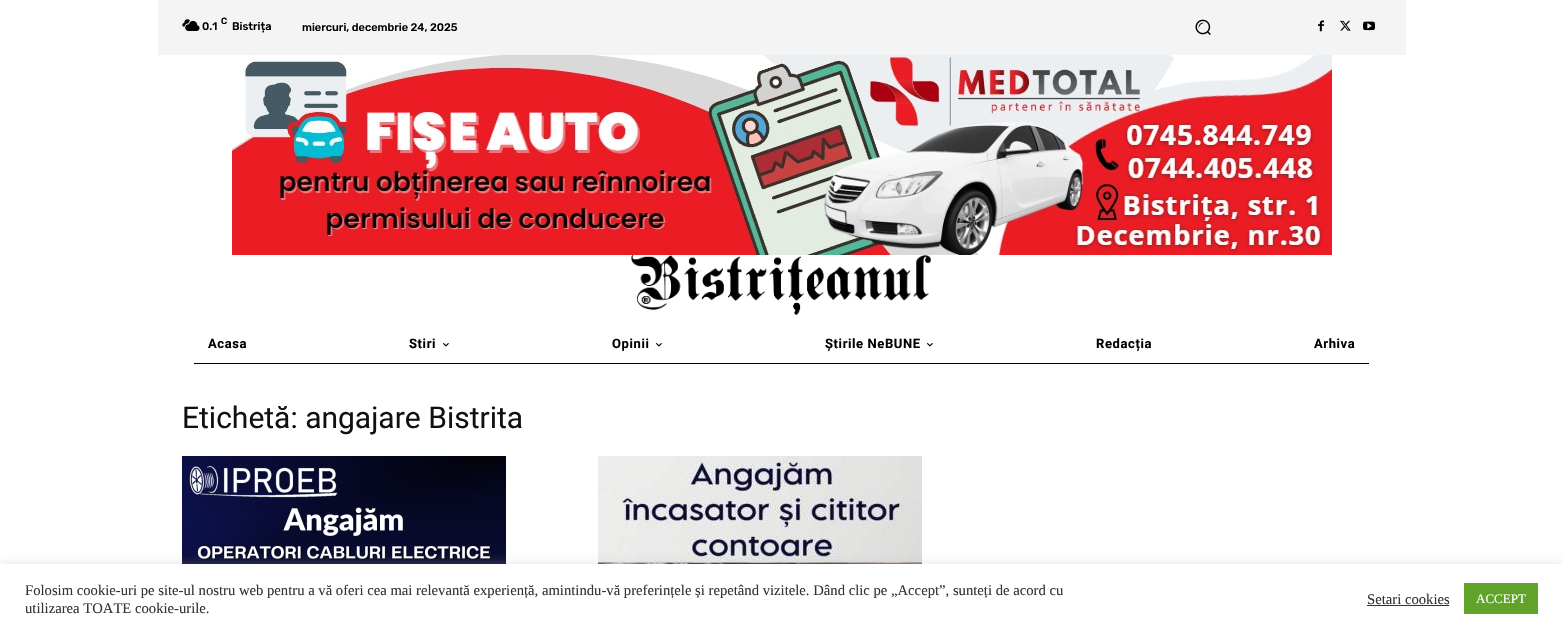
#include "include/core/SkBlurTypes.h"
#include "include/core/SkCanvas.h"
#include "include/core/SkData.h"
#include "include/core/SkFont.h"
#include "include/core/SkFontMgr.h"
#include "include/core/SkImage.h"
#include "include/core/SkMaskFilter.h"
#include "include/core/SkPaint.h"
#include "include/core/SkPathBuilder.h"
#include "include/core/SkTextBlob.h"
#include "include/effects/SkDashPathEffect.h"
#include "include/effects/SkGradientShader.h"
#include "include/utils/SkParsePath.h"

extern sk_sp<SkFontMgr> fontMgr;

void draw(SkCanvas* canvas) {
    SkPaint p;
    p.setAntiAlias(true);
    auto font = [&](const char* family, int weight, float size, bool italic = false) {
        SkFontStyle style(weight, SkFontStyle::kNormal_Width,
            italic ? SkFontStyle::kItalic_Slant : SkFontStyle::kUpright_Slant);
        SkFont result(fontMgr->matchFamilyStyle(family, style), size);
        result.setSubpixel(true);
        return result;
    };
    auto drawTracked = [&](const char* s, float x, float y, const SkFont& font, const SkPaint& ink, float letter, float word) {
        std::vector<SkGlyphID> glyphs(font.countText(s, strlen(s), SkTextEncoding::kUTF8));
        std::vector<float> xs(glyphs.size());
        font.textToGlyphs(s, strlen(s), SkTextEncoding::kUTF8, glyphs);
        font.getXPos(glyphs, xs, x);
        float extra = 0;
        for (size_t i = 0; i < glyphs.size(); i++) {
            xs[i] += extra;
            extra += letter + word * (glyphs[i] == font.unicharToGlyph(' '));
        }
        canvas->drawTextBlob(SkTextBlob::MakeFromPosHGlyphs(glyphs, xs, y, font), 0, 0, ink);
    };
    auto drawPhoto = [&](const char* path, float l, float t, float r, float b) {
        auto image = SkImages::DeferredFromEncodedData(SkData::MakeFromFileName(path));
        canvas->drawImageRect(image, SkRect::MakeLTRB(l, t, r, b), SkSamplingOptions());
    };
    canvas->clear(0xFFFFFFFF);
    p.setColor(0xFFF4F4F4);
    canvas->drawRect(SkRect::MakeLTRB(158, 0, 1406, 55), p);
    drawPhoto("media/1.png", 182, 19, 200, 31);
    auto font1 = font("Rubik", 500, 9);
    p.setColor(0xFF000000);
    canvas->drawString("C", 221, 24, font1, p);
    auto font2 = font("Rubik", 500, 11);
    {
        const struct { const char* s; float x, y; } items[] = {
            {"0.1", 202, 30},
            {"Bistrița", 232, 30},
            {"miercuri, decembrie 24, 2025", 302, 31},
        };
        for (auto [s, x, y] : items) {
            canvas->drawString(s, x, y, font2, p);
        }
    }
    drawPhoto("media/2.png", 1195, 19, 1211, 35);
    drawPhoto("media/3.png", 1318, 20, 1324, 32);
    drawPhoto("media/4.png", 1340, 20, 1351, 31);
    drawPhoto("media/5.png", 1363, 21, 1375, 31);
    drawPhoto("media/6.png", 232, 55, 1332, 255);
    drawPhoto("media/7.png", 631, 255, 931, 315);
    canvas->drawRect(SkRect::MakeLTRB(194, 363, 1369, 364), p);
    auto font3 = font("Roboto", 700, 13);
    drawTracked("Acasa", 208, 348, font3, p, 0.6f, 0);
    drawTracked("Stiri", 409, 348, font3, p, 0.6f, 0);
    drawPhoto("media/8.png", 443, 343, 449, 347);
    drawTracked("Opinii", 612, 348, font3, p, 0.6f, 0);
    drawPhoto("media/8.png", 656, 343, 662, 347);
    drawTracked("Știrile NeBUNE", 825, 348, font3, p, 0.6f, 0);
    drawPhoto("media/8.png", 927, 343, 933, 347);
    drawTracked("Redacția", 1096, 348, font3, p, 0.6f, 0);
    drawTracked("Arhiva", 1314, 348, font3, p, 0.6f, 0);
    auto font4 = font("Roboto", 400, 30);
    p.setColor(0xFF111111);
    canvas->drawString("Etichetă: angajare Bistrita", 182, 428, font4, p);
    drawPhoto("media/9.png", 182, 456, 506, 564);
    drawPhoto("media/10.png", 598, 456, 922, 564);
    p.setColor(0x4DACABAB);
    p.setMaskFilter(SkMaskFilter::MakeBlur(kNormal_SkBlurStyle, 5));
    canvas->drawRect(SkRect::MakeLTRB(0, 563, 1563, 632), p);
    p.setMaskFilter(nullptr);
    p.setColor(0xFFFFFFFF);
    canvas->drawRect(SkRect::MakeLTRB(0, 564, 1563, 633), p);
    auto font5 = font("Liberation Serif", 400, 14.67f);
    p.setColor(0xFF333333);
    {
        const struct { const char* s; float x, y; } items[] = {
            {"Folosim cookie-uri pe site-ul nostru web pentru a vă oferi cea mai relevantă experiență, amintindu-vă preferințele și repetând vizitele. Dând clic pe „Accept”, sunteți de acord cu", 25, 595},
            {"utilizarea TOATE cookie-urile.", 25, 613},
            {"Setari cookies", 1367, 604},
        };
        for (auto [s, x, y] : items) {
            canvas->drawString(s, x, y, font5, p);
        }
    }
    canvas->drawRect(SkRect::MakeLTRB(1367, 605, 1449, 606), p);
    p.setColor(0xFF61A229);
    canvas->drawRect(SkRect::MakeLTRB(1464, 583, 1538, 614), p);
    auto font6 = font("Liberation Serif", 400, 13);
    p.setColor(0xFFFFFFFF);
    canvas->drawString("ACCEPT", 1476, 603, font6, p);
}
